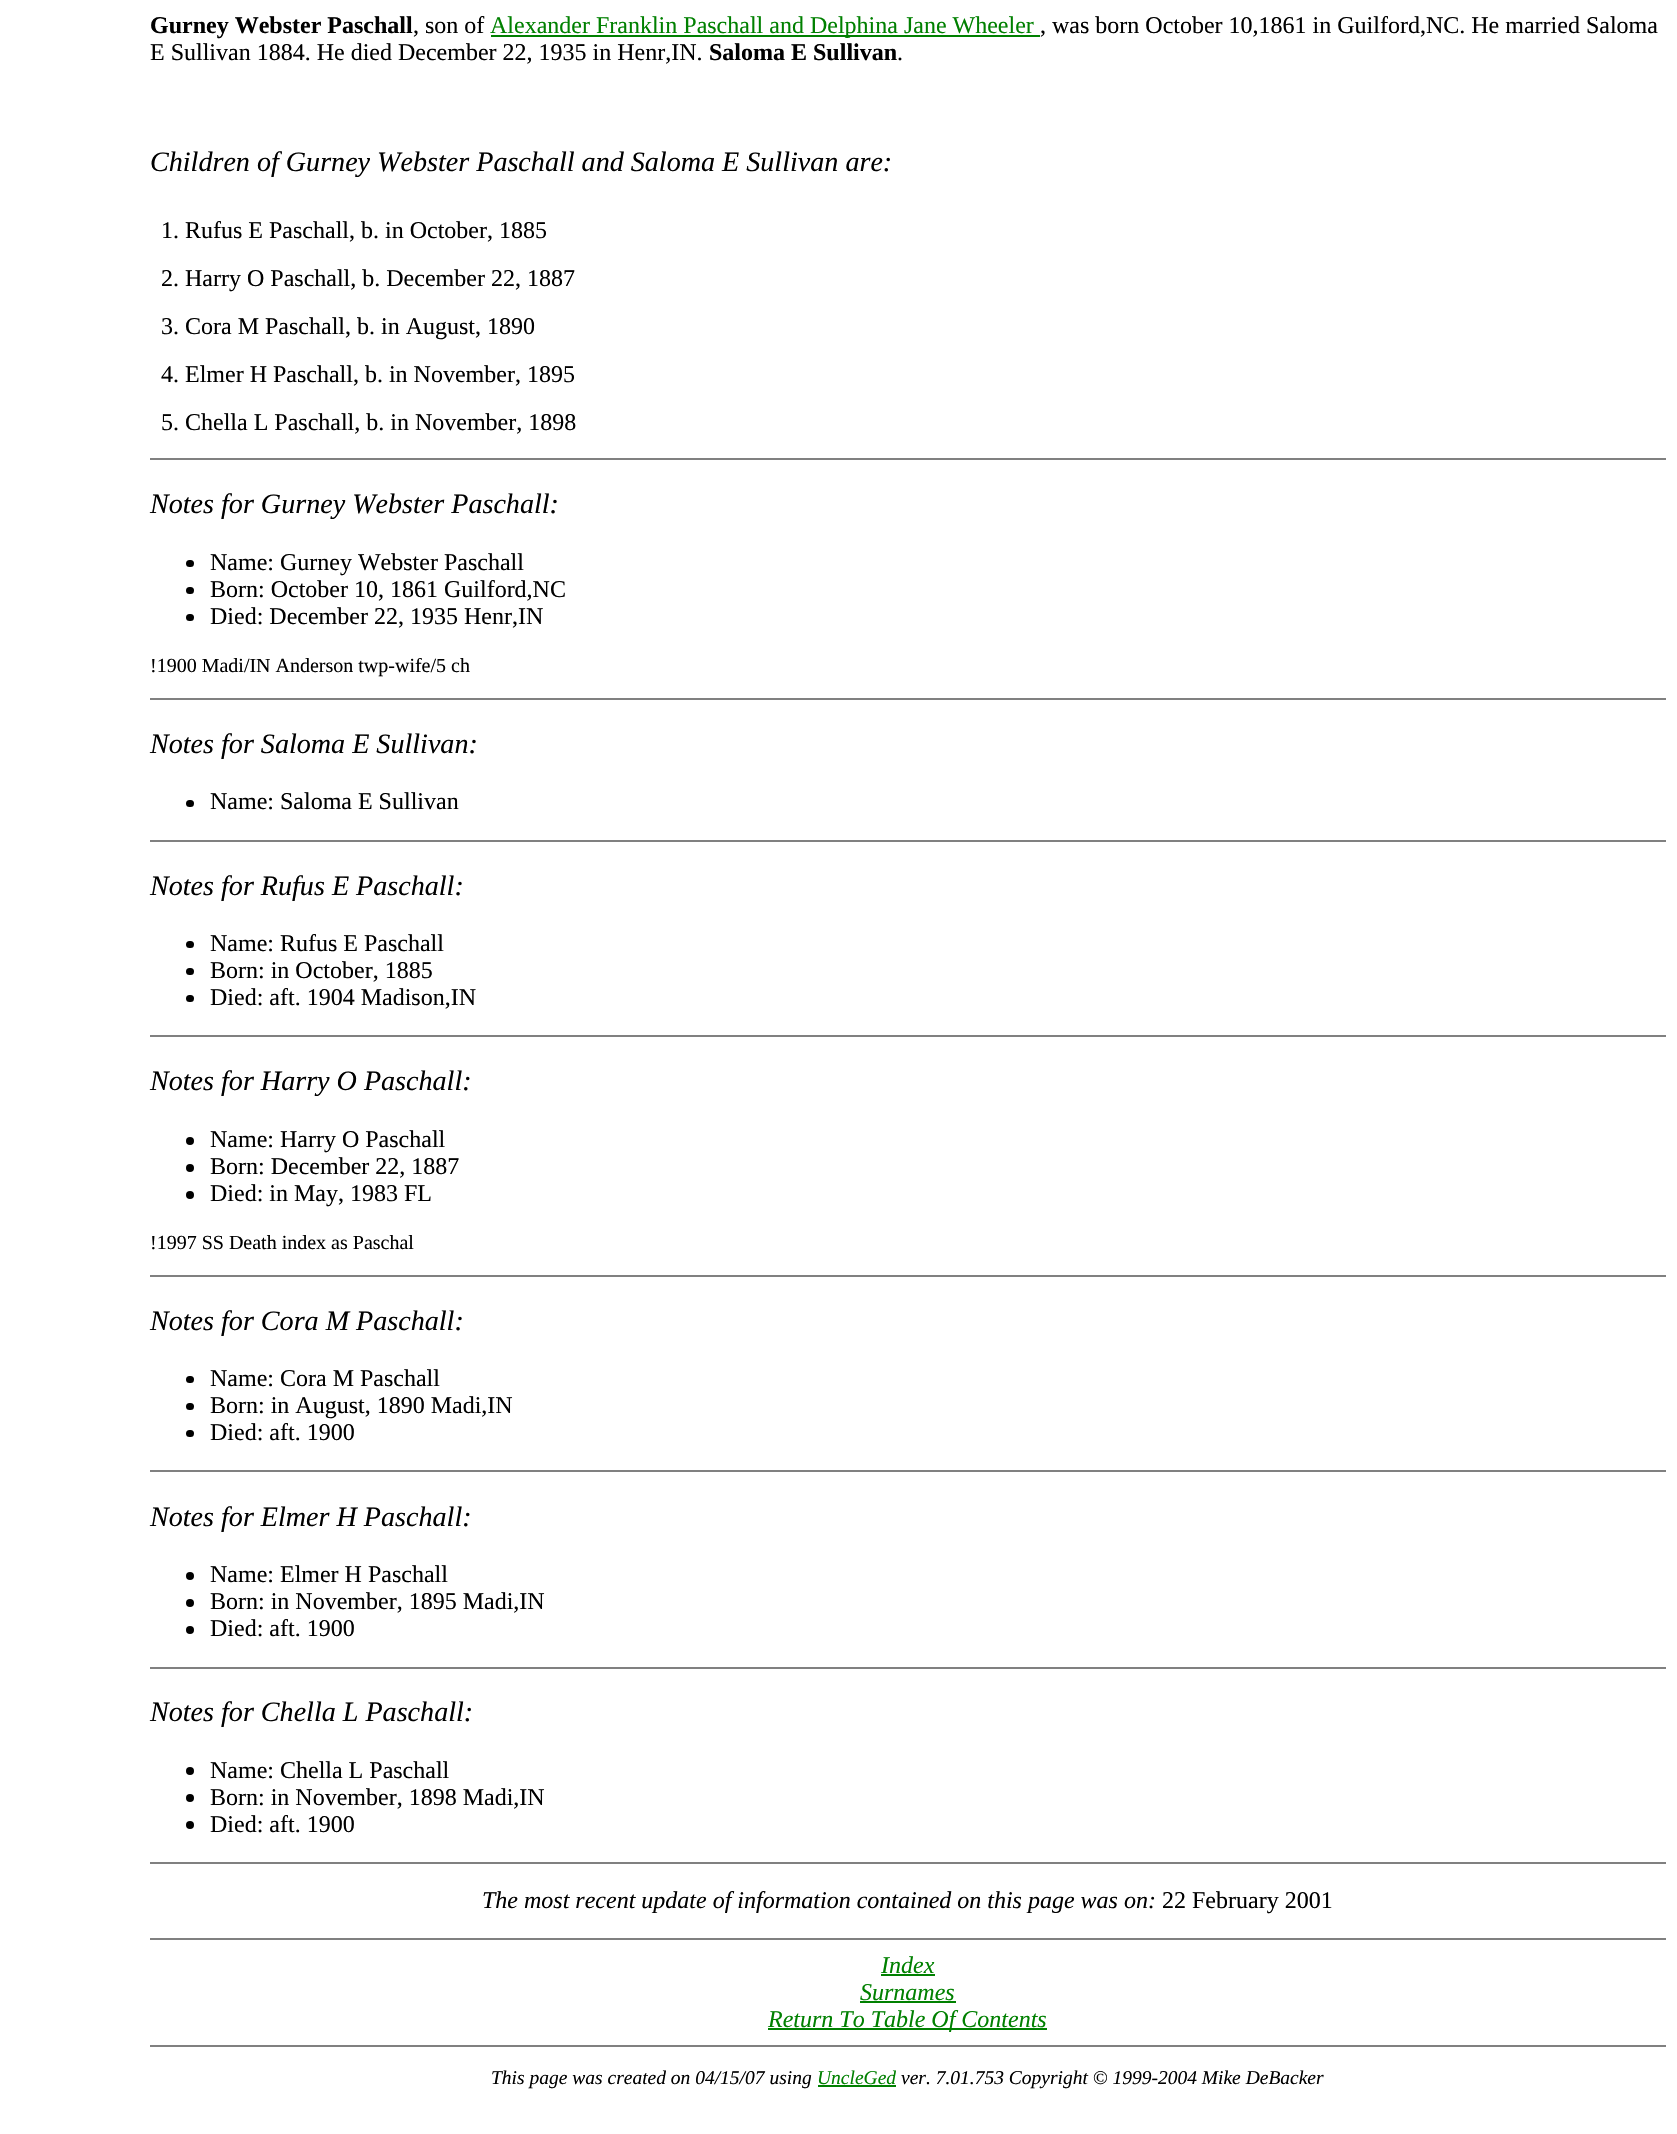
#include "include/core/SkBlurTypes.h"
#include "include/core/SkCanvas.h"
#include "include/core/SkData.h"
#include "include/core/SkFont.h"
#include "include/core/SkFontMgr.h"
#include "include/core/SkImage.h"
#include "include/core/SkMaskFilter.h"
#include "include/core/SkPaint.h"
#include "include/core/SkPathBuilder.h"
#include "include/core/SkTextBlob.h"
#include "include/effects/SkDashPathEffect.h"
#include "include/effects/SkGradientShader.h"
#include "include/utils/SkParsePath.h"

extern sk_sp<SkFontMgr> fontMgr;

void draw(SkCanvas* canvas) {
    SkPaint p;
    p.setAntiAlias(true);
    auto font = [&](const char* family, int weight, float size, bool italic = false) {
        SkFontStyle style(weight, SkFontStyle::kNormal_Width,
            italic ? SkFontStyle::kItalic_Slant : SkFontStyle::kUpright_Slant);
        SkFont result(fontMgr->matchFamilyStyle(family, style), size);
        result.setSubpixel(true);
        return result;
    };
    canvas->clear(0xFFFFFFFF);
    auto font1 = font("Liberation Serif", 700, 24);
    p.setColor(0xFF000000);
    canvas->drawString("Gurney Webster Paschall", 150, 33, font1, p);
    auto font2 = font("Liberation Serif", 400, 24);
    canvas->drawString(", son of", 413, 33, font2, p);
    p.setColor(0xFF008000);
    canvas->drawRect(SkRect::MakeLTRB(491, 35, 1040, 37), p);
    canvas->drawString("Alexander Franklin Paschall and Delphina Jane Wheeler", 490, 33, font2, p);
    p.setColor(0xFF000000);
    canvas->drawString(", was born October 10,1861 in Guilford,NC. He married Saloma", 1040, 33, font2, p);
    canvas->drawString("E Sullivan 1884. He died December 22, 1935 in Henr,IN.", 150, 60, font2, p);
    canvas->drawString("Saloma E Sullivan", 709, 60, font1, p);
    canvas->drawString(".", 897, 60, font2, p);
    auto font3 = font("Liberation Serif", 400, 28.1f, true);
    canvas->drawString("Children of Gurney Webster Paschall and Saloma E Sullivan are:", 150, 171, font3, p);
    {
        const struct { const char* s; float x, y; } items[] = {
            {"1. Rufus E Paschall, b. in October, 1885", 161, 238},
            {"2. Harry O Paschall, b. December 22, 1887", 161, 286},
            {"3. Cora M Paschall, b. in August, 1890", 161, 334},
            {"4. Elmer H Paschall, b. in November, 1895", 161, 382},
            {"5. Chella L Paschall, b. in November, 1898", 161, 430},
        };
        for (auto [s, x, y] : items) {
            canvas->drawString(s, x, y, font2, p);
        }
    }
    p.setColor(0xFF808080);
    canvas->drawRect(SkRect::MakeLTRB(150, 458, 1666, 460), p);
    p.setColor(0xFF000000);
    canvas->drawString("Notes for Gurney Webster Paschall:", 150, 513, font3, p);
    canvas->drawRoundRect(SkRect::MakeLTRB(186, 560, 194, 567), 3.5f, 3.5f, p);
    canvas->drawString("Name: Gurney Webster Paschall", 210, 570, font2, p);
    canvas->drawRoundRect(SkRect::MakeLTRB(186, 587, 194, 594), 3.5f, 3.5f, p);
    canvas->drawString("Born: October 10, 1861 Guilford,NC", 210, 597, font2, p);
    canvas->drawRoundRect(SkRect::MakeLTRB(186, 614, 194, 621), 3.5f, 3.5f, p);
    canvas->drawString("Died: December 22, 1935 Henr,IN", 210, 624, font2, p);
    auto font4 = font("Liberation Serif", 400, 20);
    canvas->drawString("!1900 Madi/IN Anderson twp-wife/5 ch", 150, 672, font4, p);
    p.setColor(0xFF808080);
    canvas->drawRect(SkRect::MakeLTRB(150, 698, 1666, 700), p);
    p.setColor(0xFF000000);
    canvas->drawString("Notes for Saloma E Sullivan:", 150, 753, font3, p);
    canvas->drawRoundRect(SkRect::MakeLTRB(186, 800, 194, 807), 3.5f, 3.5f, p);
    canvas->drawString("Name: Saloma E Sullivan", 210, 809, font2, p);
    p.setColor(0xFF808080);
    canvas->drawRect(SkRect::MakeLTRB(150, 840, 1666, 842), p);
    p.setColor(0xFF000000);
    canvas->drawString("Notes for Rufus E Paschall:", 150, 895, font3, p);
    canvas->drawRoundRect(SkRect::MakeLTRB(186, 941, 194, 948), 3.5f, 3.5f, p);
    canvas->drawString("Name: Rufus E Paschall", 210, 951, font2, p);
    canvas->drawRoundRect(SkRect::MakeLTRB(186, 968, 194, 975), 3.5f, 3.5f, p);
    canvas->drawString("Born: in October, 1885", 210, 978, font2, p);
    canvas->drawRoundRect(SkRect::MakeLTRB(186, 995, 194, 1002), 3.5f, 3.5f, p);
    canvas->drawString("Died: aft. 1904 Madison,IN", 210, 1005, font2, p);
    p.setColor(0xFF808080);
    canvas->drawRect(SkRect::MakeLTRB(150, 1035, 1666, 1037), p);
    p.setColor(0xFF000000);
    canvas->drawString("Notes for Harry O Paschall:", 150, 1090, font3, p);
    canvas->drawCircle(190, 1141, 4, p);
    canvas->drawString("Name: Harry O Paschall", 210, 1147, font2, p);
    canvas->drawCircle(190, 1168, 4, p);
    canvas->drawString("Born: December 22, 1887", 210, 1174, font2, p);
    canvas->drawCircle(190, 1195, 4, p);
    canvas->drawString("Died: in May, 1983 FL", 210, 1201, font2, p);
    canvas->drawString("!1997 SS Death index as Paschal", 150, 1249, font4, p);
    p.setColor(0xFF808080);
    canvas->drawRect(SkRect::MakeLTRB(150, 1275, 1666, 1277), p);
    p.setColor(0xFF000000);
    canvas->drawString("Notes for Cora M Paschall:", 150, 1330, font3, p);
    canvas->drawRoundRect(SkRect::MakeLTRB(186, 1376, 194, 1383), 3.5f, 3.5f, p);
    canvas->drawString("Name: Cora M Paschall", 210, 1386, font2, p);
    canvas->drawRoundRect(SkRect::MakeLTRB(186, 1403, 194, 1410), 3.5f, 3.5f, p);
    canvas->drawString("Born: in August, 1890 Madi,IN", 210, 1413, font2, p);
    canvas->drawRoundRect(SkRect::MakeLTRB(186, 1430, 194, 1437), 3.5f, 3.5f, p);
    canvas->drawString("Died: aft. 1900", 210, 1440, font2, p);
    p.setColor(0xFF808080);
    canvas->drawRect(SkRect::MakeLTRB(150, 1470, 1666, 1472), p);
    p.setColor(0xFF000000);
    canvas->drawString("Notes for Elmer H Paschall:", 150, 1526, font3, p);
    canvas->drawCircle(190, 1576, 4, p);
    canvas->drawString("Name: Elmer H Paschall", 210, 1582, font2, p);
    canvas->drawCircle(190, 1603, 4, p);
    canvas->drawString("Born: in November, 1895 Madi,IN", 210, 1609, font2, p);
    canvas->drawCircle(190, 1630, 4, p);
    canvas->drawString("Died: aft. 1900", 210, 1636, font2, p);
    p.setColor(0xFF808080);
    canvas->drawRect(SkRect::MakeLTRB(150, 1667, 1666, 1669), p);
    p.setColor(0xFF000000);
    canvas->drawString("Notes for Chella L Paschall:", 150, 1721, font3, p);
    canvas->drawCircle(190, 1771, 4, p);
    canvas->drawString("Name: Chella L Paschall", 210, 1778, font2, p);
    canvas->drawCircle(190, 1798, 4, p);
    canvas->drawString("Born: in November, 1898 Madi,IN", 210, 1805, font2, p);
    canvas->drawCircle(190, 1825, 4, p);
    canvas->drawString("Died: aft. 1900", 210, 1832, font2, p);
    p.setColor(0xFF808080);
    canvas->drawRect(SkRect::MakeLTRB(150, 1862, 1666, 1864), p);
    auto font5 = font("Liberation Serif", 400, 24, true);
    p.setColor(0xFF000000);
    canvas->drawString("The most recent update of information contained on this page was on:", 482, 1908, font5, p);
    canvas->drawString("22 February 2001", 1162, 1908, font2, p);
    p.setColor(0xFF808080);
    canvas->drawRect(SkRect::MakeLTRB(150, 1938, 1666, 1940), p);
    p.setColor(0xFF008000);
    canvas->drawString("Index", 881, 1973, font5, p);
    canvas->drawRect(SkRect::MakeLTRB(881, 1974, 935, 1976), p);
    canvas->drawString("Surnames", 860, 2000, font5, p);
    canvas->drawRect(SkRect::MakeLTRB(860, 2001, 956, 2003), p);
    canvas->drawRect(SkRect::MakeLTRB(768, 2028, 1047, 2030), p);
    canvas->drawString("Return To Table Of Contents", 768, 2027, font5, p);
    p.setColor(0xFF808080);
    canvas->drawRect(SkRect::MakeLTRB(150, 2045, 1666, 2047), p);
    auto font6 = font("Liberation Serif", 400, 19.5f, true);
    p.setColor(0xFF000000);
    canvas->drawString("This page was created on 04/15/07 using", 491, 2084, font6, p);
    p.setColor(0xFF008000);
    canvas->drawString("UncleGed", 817, 2084, font6, p);
    canvas->drawRect(SkRect::MakeLTRB(818, 2085, 896, 2087), p);
    p.setColor(0xFF000000);
    canvas->drawString("ver. 7.01.753 Copyright © 1999-2004 Mike DeBacker", 901, 2084, font6, p);
}
